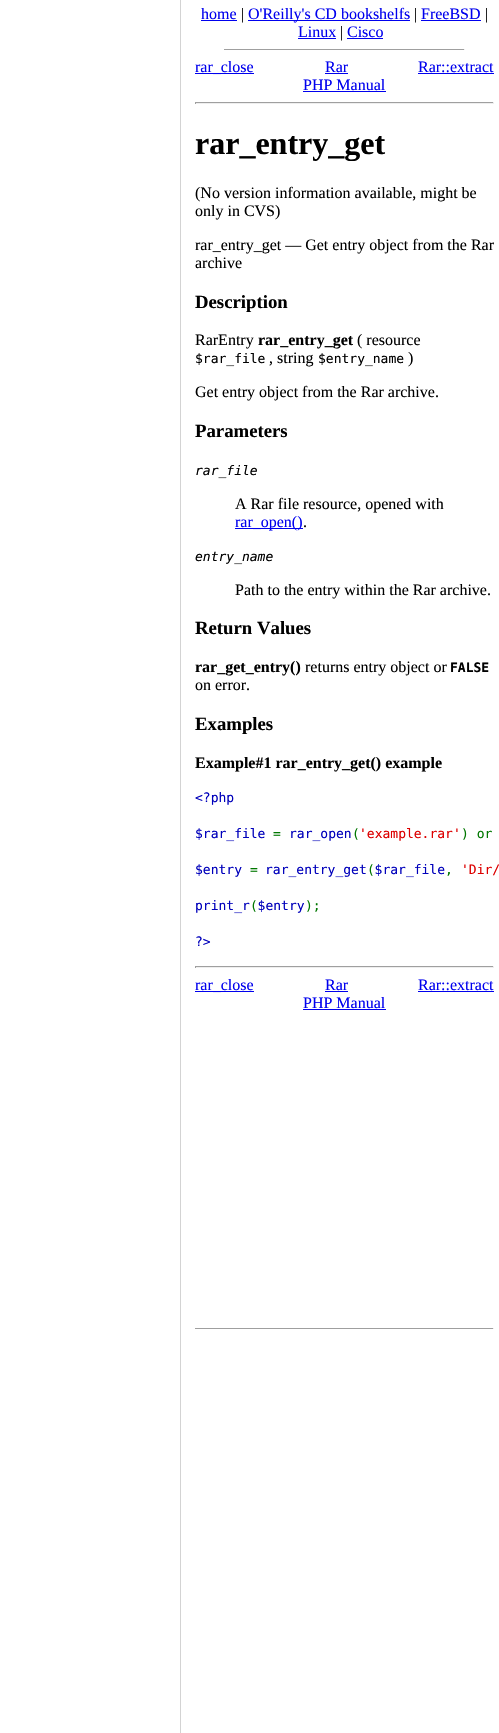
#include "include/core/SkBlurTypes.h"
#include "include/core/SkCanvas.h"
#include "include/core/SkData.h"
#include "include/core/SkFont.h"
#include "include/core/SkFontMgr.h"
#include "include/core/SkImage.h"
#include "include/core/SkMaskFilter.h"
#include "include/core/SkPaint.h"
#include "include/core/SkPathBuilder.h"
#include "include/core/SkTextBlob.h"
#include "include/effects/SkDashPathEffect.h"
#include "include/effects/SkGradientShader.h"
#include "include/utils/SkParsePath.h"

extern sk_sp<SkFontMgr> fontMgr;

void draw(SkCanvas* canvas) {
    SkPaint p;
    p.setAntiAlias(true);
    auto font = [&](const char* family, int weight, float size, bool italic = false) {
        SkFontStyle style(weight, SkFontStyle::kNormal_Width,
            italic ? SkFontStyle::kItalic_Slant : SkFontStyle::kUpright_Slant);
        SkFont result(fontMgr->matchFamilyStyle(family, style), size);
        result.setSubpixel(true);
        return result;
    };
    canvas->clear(0xFFFFFFFF);
    p.setColor(0xFFD3D3D3);
    canvas->drawRect(SkRect::MakeLTRB(180, 0, 181, 1733), p);
    auto font1 = font("Liberation Serif", 400, 16);
    p.setColor(0xFF0000EE);
    canvas->drawString("home", 201, 19, font1, p);
    canvas->drawRect(SkRect::MakeLTRB(201, 20, 237, 21), p);
    p.setColor(0xFF000000);
    canvas->drawString("|", 241, 19, font1, p);
    p.setColor(0xFF0000EE);
    canvas->drawRect(SkRect::MakeLTRB(248, 20, 410, 21), p);
    canvas->drawString("O'Reilly's CD bookshelfs", 248, 19, font1, p);
    p.setColor(0xFF000000);
    canvas->drawString("|", 414, 19, font1, p);
    p.setColor(0xFF0000EE);
    canvas->drawString("FreeBSD", 421, 19, font1, p);
    canvas->drawRect(SkRect::MakeLTRB(421, 20, 481, 21), p);
    p.setColor(0xFF000000);
    canvas->drawString("|", 485, 19, font1, p);
    p.setColor(0xFF0000EE);
    canvas->drawString("Linux", 298, 37, font1, p);
    canvas->drawRect(SkRect::MakeLTRB(298, 38, 336, 39), p);
    p.setColor(0xFF000000);
    canvas->drawString("|", 340, 37, font1, p);
    p.setColor(0xFF0000EE);
    canvas->drawString("Cisco", 347, 37, font1, p);
    {
        const struct { float l, t, r, b; SkColor color; } items[] = {
            {347, 38, 383, 39, 0xFF0000EE},
            {224, 49, 465, 50, 0xFF9F9F9F},
            {464, 49, 465, 50, 0xFFEEEEEE},
            {195, 73, 254, 74, 0xFF0000EE},
        };
        for (auto [l, t, r, b, color] : items) {
            p.setColor(color);
            canvas->drawRect(SkRect::MakeLTRB(l, t, r, b), p);
        }
    }
    canvas->drawString("rar_close", 195, 72, font1, p);
    canvas->drawString("Rar", 325, 72, font1, p);
    canvas->drawRect(SkRect::MakeLTRB(325, 73, 348, 74), p);
    canvas->drawString("Rar::extract", 418, 72, font1, p);
    canvas->drawRect(SkRect::MakeLTRB(418, 73, 494, 74), p);
    canvas->drawString("PHP Manual", 303, 90, font1, p);
    {
        const struct { float l, t, r, b; SkColor color; } items[] = {
            {303, 91, 386, 92, 0xFF0000EE},
            {195, 102, 494, 103, 0xFF9F9F9F},
            {493, 102, 494, 104, 0xFFEEEEEE},
            {195, 103, 494, 104, 0xFFEEEEEE},
            {195, 102, 196, 104, 0xFF9F9F9F},
        };
        for (auto [l, t, r, b, color] : items) {
            p.setColor(color);
            canvas->drawRect(SkRect::MakeLTRB(l, t, r, b), p);
        }
    }
    auto font2 = font("Liberation Serif", 700, 32);
    p.setColor(0xFF000000);
    canvas->drawString("rar_entry_get", 195, 154, font2, p);
    {
        const struct { const char* s; float x, y; } items[] = {
            {"(No version information available, might be", 195, 198},
            {"only in CVS)", 195, 216},
            {"rar_entry_get — Get entry object from the Rar", 195, 250},
            {"archive", 195, 268},
        };
        for (auto [s, x, y] : items) {
            canvas->drawString(s, x, y, font1, p);
        }
    }
    auto font3 = font("Liberation Serif", 700, 18.75f);
    canvas->drawString("Description", 195, 308, font3, p);
    canvas->drawString("RarEntry", 195, 345, font1, p);
    auto font4 = font("Liberation Serif", 700, 16);
    canvas->drawString("rar_entry_get", 258, 345, font4, p);
    canvas->drawString("( resource", 357, 345, font1, p);
    auto font5 = font("DejaVu Sans Mono", 400, 13);
    canvas->drawString("$rar_file", 195, 363, font5, p);
    canvas->drawString(", string", 269, 363, font1, p);
    canvas->drawString("$entry_name", 318, 363, font5, p);
    canvas->drawString(")", 408, 363, font1, p);
    canvas->drawString("Get entry object from the Rar archive.", 195, 397, font1, p);
    canvas->drawString("Parameters", 195, 437, font3, p);
    auto font6 = font("DejaVu Sans Mono", 400, 13, true);
    canvas->drawString("rar_file", 195, 475, font6, p);
    canvas->drawString("A Rar file resource, opened with", 235, 509, font1, p);
    p.setColor(0xFF0000EE);
    canvas->drawRect(SkRect::MakeLTRB(235, 528, 303, 529), p);
    canvas->drawString("rar_open()", 235, 527, font1, p);
    p.setColor(0xFF000000);
    canvas->drawString(".", 303, 527, font1, p);
    canvas->drawString("entry_name", 195, 561, font6, p);
    canvas->drawString("Path to the entry within the Rar archive.", 235, 595, font1, p);
    canvas->drawString("Return Values", 195, 634, font3, p);
    canvas->drawString("rar_get_entry()", 195, 672, font4, p);
    canvas->drawString("returns entry object or", 305, 672, font1, p);
    auto font7 = font("DejaVu Sans Mono", 700, 13);
    canvas->drawString("FALSE", 450, 672, font7, p);
    canvas->drawString("on error.", 195, 690, font1, p);
    canvas->drawString("Examples", 195, 730, font3, p);
    canvas->drawString("Example#1 rar_entry_get() example", 195, 768, font4, p);
    p.setColor(0xFF0000BB);
    canvas->drawString("<?php", 195, 802, font5, p);
    canvas->drawString("$rar_file", 195, 838, font5, p);
    p.setColor(0xFF007700);
    canvas->drawString("=", 273, 838, font5, p);
    p.setColor(0xFF0000BB);
    canvas->drawString("rar_open", 289, 838, font5, p);
    p.setColor(0xFF007700);
    canvas->drawString("(", 352, 838, font5, p);
    p.setColor(0xFFDD0000);
    canvas->drawString("'example.rar'", 359, 838, font5, p);
    p.setColor(0xFF007700);
    canvas->drawString(") or", 461, 838, font5, p);
    p.setColor(0xFF0000BB);
    canvas->drawString("$entry", 195, 874, font5, p);
    canvas->drawString("rar_entry_get $rar_file", 265, 874, font5, p);
    p.setColor(0xFF007700);
    canvas->drawString("=", 250, 874, font5, p);
    canvas->drawString("(", 367, 874, font5, p);
    p.setColor(0xFFDD0000);
    canvas->drawString("'Dir/", 461, 874, font5, p);
    p.setColor(0xFF007700);
    canvas->drawString(",", 445, 874, font5, p);
    p.setColor(0xFF0000BB);
    canvas->drawString("print_r $entry", 195, 910, font5, p);
    p.setColor(0xFF007700);
    canvas->drawString("(", 250, 910, font5, p);
    canvas->drawString(");", 305, 910, font5, p);
    p.setColor(0xFF0000BB);
    canvas->drawString("?>", 195, 946, font5, p);
    {
        const struct { float l, t, r, b; SkColor color; } items[] = {
            {195, 966, 494, 967, 0xFF9F9F9F},
            {493, 966, 494, 968, 0xFFEEEEEE},
            {195, 967, 494, 968, 0xFFEEEEEE},
            {195, 966, 196, 968, 0xFF9F9F9F},
            {195, 991, 254, 992, 0xFF0000EE},
        };
        for (auto [l, t, r, b, color] : items) {
            p.setColor(color);
            canvas->drawRect(SkRect::MakeLTRB(l, t, r, b), p);
        }
    }
    canvas->drawString("rar_close", 195, 990, font1, p);
    canvas->drawString("Rar", 325, 990, font1, p);
    canvas->drawRect(SkRect::MakeLTRB(325, 991, 348, 992), p);
    canvas->drawString("Rar::extract", 418, 990, font1, p);
    canvas->drawRect(SkRect::MakeLTRB(418, 991, 494, 992), p);
    canvas->drawString("PHP Manual", 303, 1008, font1, p);
    {
        const struct { float l, t, r, b; SkColor color; } items[] = {
            {303, 1009, 386, 1010, 0xFF0000EE},
            {195, 1328, 494, 1329, 0xFF9F9F9F},
            {493, 1328, 494, 1329, 0xFFEEEEEE},
        };
        for (auto [l, t, r, b, color] : items) {
            p.setColor(color);
            canvas->drawRect(SkRect::MakeLTRB(l, t, r, b), p);
        }
    }
}
